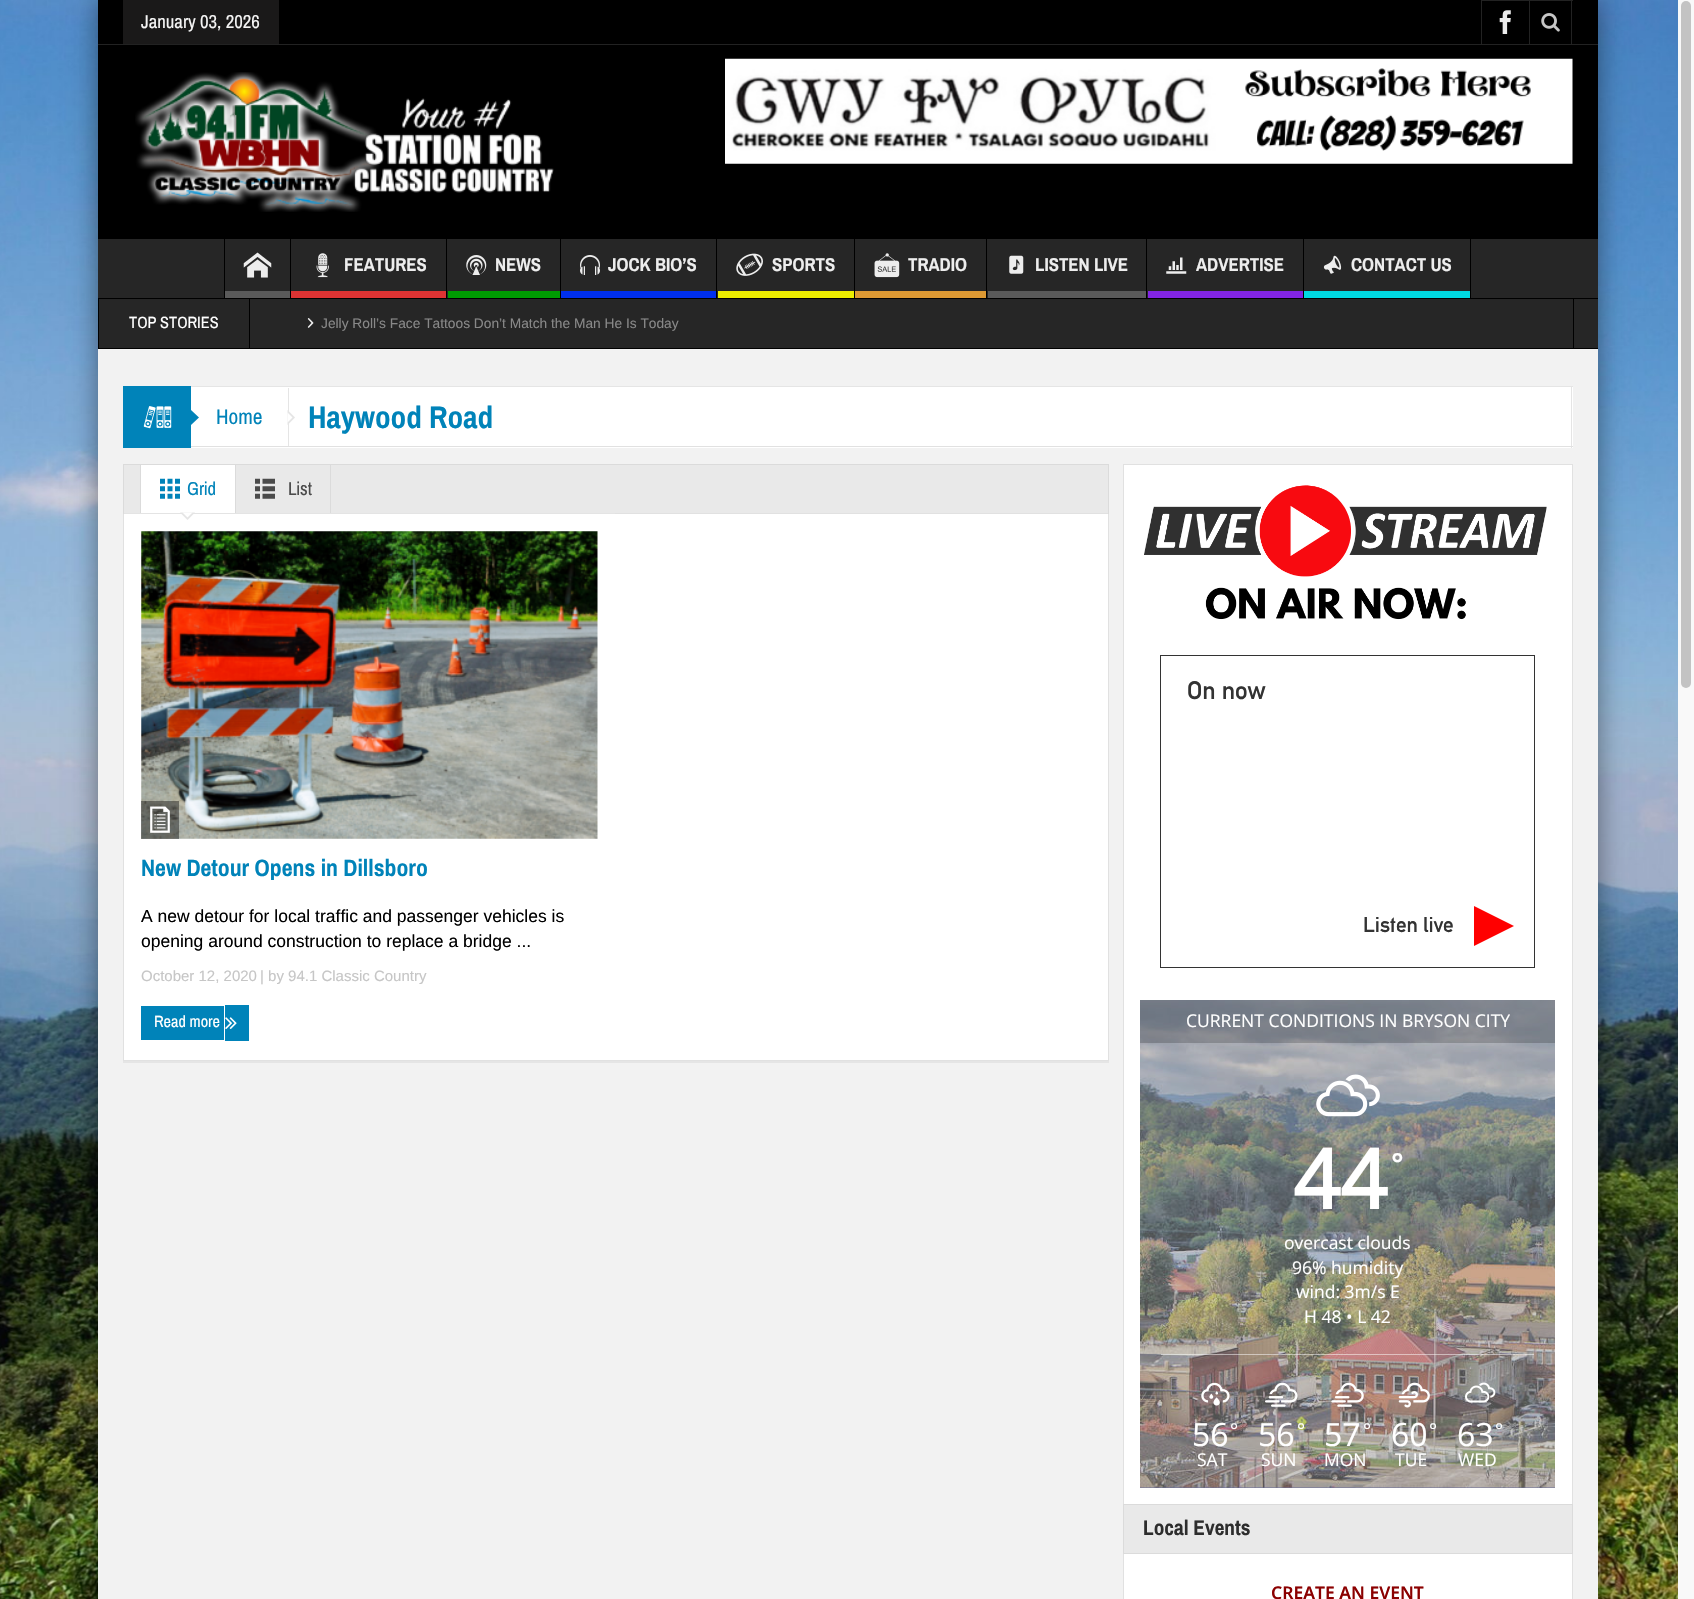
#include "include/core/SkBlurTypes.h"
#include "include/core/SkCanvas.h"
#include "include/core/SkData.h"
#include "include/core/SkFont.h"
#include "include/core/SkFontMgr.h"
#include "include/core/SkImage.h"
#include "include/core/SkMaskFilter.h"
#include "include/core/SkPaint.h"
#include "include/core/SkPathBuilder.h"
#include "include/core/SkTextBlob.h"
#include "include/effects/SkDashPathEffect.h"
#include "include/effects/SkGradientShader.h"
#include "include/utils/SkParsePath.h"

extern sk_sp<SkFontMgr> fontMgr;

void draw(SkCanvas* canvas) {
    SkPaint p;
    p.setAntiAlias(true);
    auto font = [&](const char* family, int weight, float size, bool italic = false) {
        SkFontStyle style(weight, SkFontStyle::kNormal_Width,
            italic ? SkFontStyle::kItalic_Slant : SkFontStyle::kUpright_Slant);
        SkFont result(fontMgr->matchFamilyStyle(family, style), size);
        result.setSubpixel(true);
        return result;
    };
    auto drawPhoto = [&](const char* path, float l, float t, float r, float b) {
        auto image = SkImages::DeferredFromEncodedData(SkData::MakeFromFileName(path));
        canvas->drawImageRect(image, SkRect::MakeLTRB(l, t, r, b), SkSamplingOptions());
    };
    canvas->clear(0xFFFFFFFF);
    drawPhoto("media/1.png", 0, 0, 1678, 1599);
    p.setColor(0x70000000);
    p.setMaskFilter(SkMaskFilter::MakeBlur(kNormal_SkBlurStyle, 13));
    canvas->drawRect(SkRect::MakeLTRB(98, 0, 1598, 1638), p);
    p.setMaskFilter(nullptr);
    {
        const struct { float l, t, r, b; SkColor color; } items[] = {
            {98, 349, 1598, 1599, 0xFFF2F2F2},
            {98, 0, 1598, 44, 0xFF000000},
            {98, 44, 1598, 45, 0xFF222222},
            {123, 0, 279, 44, 0xFF1A1919},
        };
        for (auto [l, t, r, b, color] : items) {
            p.setColor(color);
            canvas->drawRect(SkRect::MakeLTRB(l, t, r, b), p);
        }
    }
    auto font1 = font("Archivo Narrow", 400, 18.75f);
    p.setColor(0xFFF5F5F5);
    canvas->drawString("January 03, 2026", 141, 28, font1, p);
    p.setColor(0xFF222222);
    canvas->drawRect(SkRect::MakeLTRB(1481, 0, 1573, 1), p);
    canvas->drawRect(SkRect::MakeLTRB(1481, 0, 1482, 44), p);
    drawPhoto("media/2.png", 1499, 10, 1511, 34);
    canvas->drawRect(SkRect::MakeLTRB(1571, 0, 1572, 44), p);
    canvas->drawRect(SkRect::MakeLTRB(1529, 0, 1530, 44), p);
    drawPhoto("media/3.png", 1541, 13, 1560, 32);
    p.setColor(0xFF000000);
    canvas->drawRect(SkRect::MakeLTRB(98, 45, 1598, 239), p);
    drawPhoto("media/4.png", 135, 72, 554, 212);
    drawPhoto("media/5.png", 725, 58, 1573, 164);
    {
        const struct { float l, t, r, b; SkColor color; } items[] = {
            {98, 239, 1598, 298, 0xFF262626},
            {98, 298, 1598, 299, 0xFF000000},
            {290, 239, 291, 298, 0xFF000000},
            {224, 239, 225, 298, 0xFF000000},
        };
        for (auto [l, t, r, b, color] : items) {
            p.setColor(color);
            canvas->drawRect(SkRect::MakeLTRB(l, t, r, b), p);
        }
    }
    drawPhoto("media/6.png", 243, 252, 272, 278);
    p.setColor(0xFF5A5A5A);
    canvas->drawRect(SkRect::MakeLTRB(225, 291, 290, 298), p);
    p.setColor(0xFF000000);
    canvas->drawRect(SkRect::MakeLTRB(446, 239, 447, 298), p);
    drawPhoto("media/7.png", 316, 253, 329, 278);
    auto font2 = font("Archivo Narrow", 700, 18.75f);
    p.setColor(0xFFEDEDED);
    canvas->drawString("FEATURES", 344, 271, font2, p);
    p.setColor(0xFFDD3333);
    canvas->drawRect(SkRect::MakeLTRB(291, 291, 446, 298), p);
    p.setColor(0xFF000000);
    canvas->drawRect(SkRect::MakeLTRB(560, 239, 561, 298), p);
    drawPhoto("media/8.png", 466, 255, 487, 275);
    p.setColor(0xFFEDEDED);
    canvas->drawString("NEWS", 495, 271, font2, p);
    p.setColor(0xFF009B02);
    canvas->drawRect(SkRect::MakeLTRB(448, 291, 560, 298), p);
    p.setColor(0xFF000000);
    canvas->drawRect(SkRect::MakeLTRB(716, 239, 717, 298), p);
    drawPhoto("media/9.png", 580, 255, 600, 275);
    p.setColor(0xFFEDEDED);
    canvas->drawString("JOCK BIO’S", 608, 271, font2, p);
    p.setColor(0xFF002FED);
    canvas->drawRect(SkRect::MakeLTRB(561, 291, 716, 298), p);
    p.setColor(0xFF000000);
    canvas->drawRect(SkRect::MakeLTRB(854, 239, 855, 298), p);
    drawPhoto("media/10.png", 736, 253, 763, 276);
    p.setColor(0xFFEDEDED);
    canvas->drawString("SPORTS", 772, 271, font2, p);
    p.setColor(0xFFEDED00);
    canvas->drawRect(SkRect::MakeLTRB(718, 291, 854, 298), p);
    p.setColor(0xFF000000);
    canvas->drawRect(SkRect::MakeLTRB(986, 239, 987, 298), p);
    drawPhoto("media/11.png", 874, 253, 900, 278);
    p.setColor(0xFFEDEDED);
    canvas->drawString("TRADIO", 908, 271, font2, p);
    p.setColor(0xFFDD9933);
    canvas->drawRect(SkRect::MakeLTRB(855, 291, 986, 298), p);
    p.setColor(0xFF000000);
    canvas->drawRect(SkRect::MakeLTRB(1146, 239, 1147, 298), p);
    drawPhoto("media/12.png", 1009, 255, 1024, 274);
    p.setColor(0xFFEDEDED);
    canvas->drawString("LISTEN LIVE", 1035, 271, font2, p);
    p.setColor(0xFF5A5A5A);
    canvas->drawRect(SkRect::MakeLTRB(988, 291, 1146, 298), p);
    p.setColor(0xFF000000);
    canvas->drawRect(SkRect::MakeLTRB(1303, 239, 1304, 298), p);
    drawPhoto("media/13.png", 1166, 257, 1187, 274);
    p.setColor(0xFFEDEDED);
    canvas->drawString("ADVERTISE", 1196, 271, font2, p);
    p.setColor(0xFF8224E3);
    canvas->drawRect(SkRect::MakeLTRB(1148, 291, 1303, 298), p);
    p.setColor(0xFF000000);
    canvas->drawRect(SkRect::MakeLTRB(1470, 239, 1471, 298), p);
    drawPhoto("media/14.png", 1323, 255, 1342, 274);
    p.setColor(0xFFEDEDED);
    canvas->drawString("CONTACT US", 1351, 271, font2, p);
    {
        const struct { float l, t, r, b; SkColor color; } items[] = {
            {1304, 291, 1470, 298, 0xFF00D8E0},
            {99, 299, 1598, 348, 0xFF262626},
            {98, 348, 1598, 349, 0xFF000000},
            {249, 299, 250, 348, 0xFF000000},
            {98, 299, 99, 348, 0xFF000000},
        };
        for (auto [l, t, r, b, color] : items) {
            p.setColor(color);
            canvas->drawRect(SkRect::MakeLTRB(l, t, r, b), p);
        }
    }
    auto font3 = font("Archivo Narrow", 400, 16.25f);
    p.setColor(0xFFFFFFFF);
    canvas->drawString("TOP STORIES", 129, 328, font3, p);
    p.setColor(0xFF000000);
    canvas->drawRect(SkRect::MakeLTRB(1573, 299, 1574, 348), p);
    drawPhoto("media/15.png", 307, 318, 314, 328);
    auto font4 = font("Liberation Sans", 400, 13.75f);
    p.setColor(0xFF888888);
    canvas->drawString("Jelly Roll’s Face Tattoos Don’t Match the Man He Is Today", 321, 328, font4, p);
    {
        const struct { float l, t, r, b; SkColor color; } items[] = {
            {191, 387, 1573, 448, 0xFFFFFFFF},
            {191, 386, 1573, 387, 0xFFE5E5E5},
            {1571, 386, 1572, 448, 0xFFE5E5E5},
            {191, 446, 1573, 447, 0xFFE1E1E1},
            {123, 386, 191, 448, 0xFF0083B9},
        };
        for (auto [l, t, r, b, color] : items) {
            p.setColor(color);
            canvas->drawRect(SkRect::MakeLTRB(l, t, r, b), p);
        }
    }
    drawPhoto("media/16.png", 143, 406, 172, 429);
    canvas->drawPath(SkPathBuilder().moveTo(191, 425).lineTo(191, 410).lineTo(199, 417.5f).close().detach(), p);
    p.setColor(0xFFE5E5E5);
    canvas->drawRect(SkRect::MakeLTRB(288, 388, 289, 446), p);
    auto font5 = font("Archivo Narrow", 400, 21.25f);
    p.setColor(0xFF0083B9);
    canvas->drawString("Home", 216, 424, font5, p);
    p.setColor(0xFFE5E5E5);
    canvas->drawPath(SkPathBuilder().moveTo(287.5f, 425).lineTo(287.5f, 410).lineTo(295, 417.5f).close().detach(), p);
    p.setColor(0xFFFFFFFF);
    canvas->drawPath(SkPathBuilder().moveTo(287.5f, 422.5f).lineTo(287.5f, 412.5f).lineTo(292.5f, 417.5f).close().detach(), p);
    auto font6 = font("Archivo Narrow", 700, 31.25f);
    p.setColor(0xFF0083B9);
    canvas->drawString("Haywood Road", 308, 428, font6, p);
    p.setColor(0xFFE5E5E5);
    canvas->drawPath(SkPathBuilder().moveTo(123, 1061).lineTo(123, 1063).lineTo(1109, 1063).lineTo(1109, 465).lineTo(1109, 1061).close().detach(), p);
    p.setColor(0xFFFFFFFF);
    canvas->drawRect(SkRect::MakeLTRB(124, 514, 1108, 1060), p);
    p.setStyle(SkPaint::kStroke_Style);
    p.setStrokeWidth(1);
    p.setColor(0xFFE1E1E1);
    canvas->drawRect(SkRect::MakeLTRB(123.5f, 464.5f, 1108.5f, 1060.5f), p);
    p.setStyle(SkPaint::kFill_Style);
    p.setColor(0xFFE9E9E9);
    canvas->drawRect(SkRect::MakeLTRB(123.5f, 464.5f, 1108.5f, 513.5f), p);
    p.setStyle(SkPaint::kStroke_Style);
    p.setColor(0xFFDBDBDB);
    canvas->drawRect(SkRect::MakeLTRB(123.5f, 464.5f, 1108.5f, 513.5f), p);
    p.setStyle(SkPaint::kFill_Style);
    p.setColor(0xFFFFFFFF);
    canvas->drawRect(SkRect::MakeLTRB(141, 465, 235, 513), p);
    p.setColor(0xFFDBDBDB);
    canvas->drawRect(SkRect::MakeLTRB(140, 465, 141, 513), p);
    drawPhoto("media/17.png", 160, 478, 180, 499);
    p.setColor(0xFF0083B9);
    canvas->drawString("Grid", 187, 495, font1, p);
    p.setColor(0xFFE4E4E4);
    canvas->drawRect(SkRect::MakeLTRB(124, 513, 615, 514), p);
    p.setColor(0xFFE5E5E5);
    canvas->drawPath(SkPathBuilder().moveTo(180, 512.5f).lineTo(195, 512.5f).lineTo(187.5f, 520).close().detach(), p);
    p.setColor(0xFFFFFFFF);
    canvas->drawPath(SkPathBuilder().moveTo(182.5f, 512.5f).lineTo(192.5f, 512.5f).lineTo(187.5f, 517.5f).close().detach(), p);
    p.setColor(0xFFDBDBDB);
    canvas->drawRect(SkRect::MakeLTRB(330, 465, 331, 513), p);
    canvas->drawRect(SkRect::MakeLTRB(235, 465, 236, 513), p);
    drawPhoto("media/18.png", 255, 478, 275, 499);
    p.setColor(0xFF4B4B4B);
    canvas->drawString("List", 288, 495, font1, p);
    p.setColor(0xFFE1E1E1);
    canvas->drawRect(SkRect::MakeLTRB(615, 513, 1108, 514), p);
    drawPhoto("media/19.png", 141, 531, 598, 839);
    p.setColor(0x66000000);
    canvas->drawRect(SkRect::MakeLTRB(141, 801, 179, 839), p);
    drawPhoto("media/20.png", 150, 806, 170, 833);
    auto font7 = font("Archivo Narrow", 700, 23.75f);
    p.setColor(0xFF0083B9);
    canvas->drawString("New Detour Opens in Dillsboro", 141, 876, font7, p);
    auto font8 = font("Liberation Sans", 400, 17.5f);
    p.setColor(0xFF000000);
    canvas->drawString("A new detour for local traffic and passenger vehicles is", 141, 922, font8, p);
    canvas->drawString("opening around construction to replace a bridge ...", 141, 947, font8, p);
    auto font9 = font("Liberation Sans", 400, 15);
    p.setColor(0xFFC6C6C6);
    canvas->drawString("October 12, 2020", 141, 981, font9, p);
    canvas->drawString("| by 94.1 Classic Country", 260, 981, font9, p);
    p.setColor(0xFF0083B9);
    canvas->drawRect(SkRect::MakeLTRB(141, 1006, 224, 1040), p);
    p.setColor(0xFFFFFFFF);
    canvas->drawString("Read more", 154, 1027, font3, p);
    p.setColor(0xFF0083B9);
    canvas->drawRect(SkRect::MakeLTRB(225, 1005, 249, 1041), p);
    drawPhoto("media/21.png", 225, 1017, 237, 1029);
    p.setColor(0xFFFFFFFF);
    canvas->drawRect(SkRect::MakeLTRB(1123.5f, 464.5f, 1572.5f, 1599.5f), p);
    p.setStyle(SkPaint::kStroke_Style);
    p.setColor(0xFFE1E1E1);
    canvas->drawRect(SkRect::MakeLTRB(1123.5f, 464.5f, 1572.5f, 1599.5f), p);
    drawPhoto("media/22.png", 1144, 485, 1547, 620);
    p.setColor(0xFF333333);
    canvas->drawRect(SkRect::MakeLTRB(1160.5f, 655.5f, 1534.5f, 967.5f), p);
    auto font10 = font("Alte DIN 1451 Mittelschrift", 400, 25);
    p.setStyle(SkPaint::kFill_Style);
    canvas->drawString("On now", 1187, 699, font10, p);
    auto font11 = font("Alte DIN 1451 Mittelschrift", 400, 21.25f);
    canvas->drawString("Listen live", 1363, 932, font11, p);
    p.setColor(0xFFFF0000);
    canvas->drawPath(SkPathBuilder().moveTo(1474, 946).lineTo(1474, 906).lineTo(1514, 926).close().detach(), p);
    p.setColor(0xFF8289C1);
    canvas->drawRect(SkRect::MakeLTRB(1140, 1487, 1555, 1488), p);
    drawPhoto("media/23.png", 1140, 1000, 1555, 1488);
    p.setColor(0x33000000);
    canvas->drawRect(SkRect::MakeLTRB(1140, 1000, 1555, 1488), p);
    canvas->drawRect(SkRect::MakeLTRB(1140, 1000, 1555, 1043), p);
    auto font12 = font("Open Sans", 400, 17.5f);
    p.setColor(0xFFFFFFFF);
    canvas->drawString("CURRENT CONDITIONS IN BRYSON CITY", 1186, 1027, font12, p);
    drawPhoto("media/24.png", 1316, 1074, 1380, 1117);
    auto font13 = font("Open Sans", 700, 82);
    canvas->drawString("44", 1293, 1209, font13, p);
    auto font14 = font("Open Sans", 700, 28);
    canvas->drawString("°", 1391, 1174, font14, p);
    {
        const struct { const char* s; float x, y; } items[] = {
            {"overcast clouds", 1284, 1249},
            {"96% humidity", 1292, 1274},
            {"wind: 3m/s E", 1296, 1298},
            {"H 48 • L 42", 1304, 1323},
        };
        for (auto [s, x, y] : items) {
            canvas->drawString(s, x, y, font12, p);
        }
    }
    p.setColor(0x80FFFFFF);
    canvas->drawRect(SkRect::MakeLTRB(1161, 1354, 1534, 1355), p);
    drawPhoto("media/25.png", 1201, 1382, 1230, 1406);
    auto font15 = font("Open Sans", 400, 32);
    p.setColor(0xFFFFFFFF);
    canvas->drawString("56", 1192, 1446, font15, p);
    auto font16 = font("Open Sans", 400, 19);
    canvas->drawString("°", 1230, 1437, font16, p);
    canvas->drawString("SAT", 1197, 1466, font12, p);
    drawPhoto("media/26.png", 1265, 1382, 1298, 1407);
    canvas->drawString("56", 1258, 1446, font15, p);
    canvas->drawString("°", 1297, 1437, font16, p);
    canvas->drawString("SUN", 1261, 1466, font12, p);
    drawPhoto("media/27.png", 1331, 1382, 1364, 1407);
    canvas->drawString("57", 1324, 1446, font15, p);
    canvas->drawString("°", 1363, 1437, font16, p);
    canvas->drawString("MON", 1324, 1466, font12, p);
    drawPhoto("media/28.png", 1398, 1382, 1430, 1408);
    canvas->drawString("60", 1391, 1446, font15, p);
    canvas->drawString("°", 1429, 1437, font16, p);
    canvas->drawString("TUE", 1395, 1466, font12, p);
    drawPhoto("media/29.png", 1465, 1382, 1496, 1403);
    canvas->drawString("63", 1457, 1446, font15, p);
    canvas->drawString("°", 1495, 1437, font16, p);
    canvas->drawString("WED", 1458, 1466, font12, p);
    p.setColor(0xFFE9E9E9);
    canvas->drawRect(SkRect::MakeLTRB(1123.5f, 1504.5f, 1572.5f, 1553.5f), p);
    p.setStyle(SkPaint::kStroke_Style);
    p.setColor(0xFFDBDBDB);
    canvas->drawRect(SkRect::MakeLTRB(1123.5f, 1504.5f, 1572.5f, 1553.5f), p);
    auto font17 = font("Archivo Narrow", 700, 21.25f);
    p.setStyle(SkPaint::kFill_Style);
    p.setColor(0xFF2D2D2D);
    canvas->drawString("Local Events", 1143, 1535, font17, p);
    auto font18 = font("Noto Sans", 600, 17.5f);
    p.setColor(0xFF8B0000);
    canvas->drawString("CREATE AN EVENT", 1271, 1599, font18, p);
    p.setColor(0xFFF9F9F9);
    canvas->drawRect(SkRect::MakeLTRB(1678, 0, 1694, 1599), p);
    p.setColor(0xFFC3C3C3);
    canvas->drawRoundRect(SkRect::MakeLTRB(1681, 1, 1691, 688), 5, 5, p);
}
